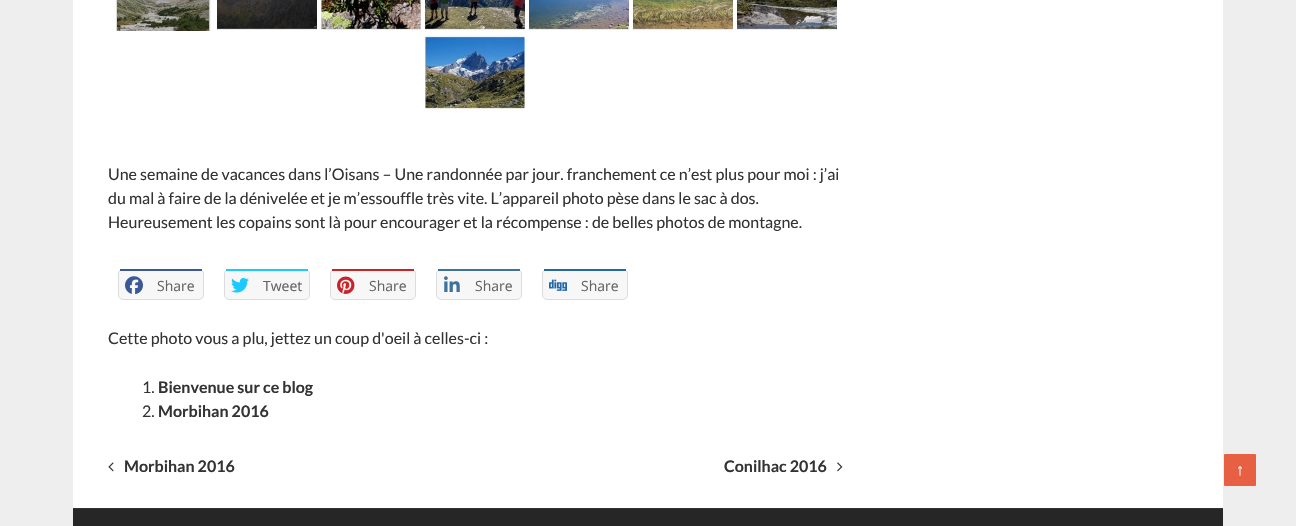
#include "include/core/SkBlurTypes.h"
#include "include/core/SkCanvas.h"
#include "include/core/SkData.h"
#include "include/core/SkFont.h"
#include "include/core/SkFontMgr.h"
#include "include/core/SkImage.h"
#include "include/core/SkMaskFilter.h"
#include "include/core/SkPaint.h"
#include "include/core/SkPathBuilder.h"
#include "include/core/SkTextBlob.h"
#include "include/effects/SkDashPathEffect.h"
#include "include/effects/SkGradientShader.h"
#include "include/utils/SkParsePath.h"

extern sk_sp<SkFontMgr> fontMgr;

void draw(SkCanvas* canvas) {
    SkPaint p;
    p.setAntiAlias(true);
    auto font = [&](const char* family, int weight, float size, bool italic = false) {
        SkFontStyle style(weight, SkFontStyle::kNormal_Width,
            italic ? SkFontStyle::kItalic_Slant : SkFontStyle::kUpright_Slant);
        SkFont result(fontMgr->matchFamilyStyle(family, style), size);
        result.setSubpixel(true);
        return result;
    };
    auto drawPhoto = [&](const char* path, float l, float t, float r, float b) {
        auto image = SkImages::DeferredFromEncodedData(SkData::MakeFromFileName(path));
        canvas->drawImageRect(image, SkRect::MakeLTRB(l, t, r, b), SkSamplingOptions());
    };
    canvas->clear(0xFFEEEEEE);
    p.setColor(0xFFFFFFFF);
    canvas->drawRect(SkRect::MakeLTRB(73, 0, 1223, 508), p);
    drawPhoto("media/1.png", 113, 0, 211, 31);
    drawPhoto("media/2.png", 217, 0, 317, 30);
    drawPhoto("media/3.png", 321, 0, 421, 31);
    drawPhoto("media/4.png", 425, 0, 525, 31);
    drawPhoto("media/5.png", 529, 0, 629, 31);
    drawPhoto("media/6.png", 633, 0, 733, 31);
    drawPhoto("media/7.png", 737, 0, 837, 31);
    drawPhoto("media/8.png", 425, 35, 525, 110);
    auto font1 = font("Lato", 400, 16);
    p.setColor(0xFF333333);
    {
        const struct { const char* s; float x, y; } items[] = {
            {"Une semaine de vacances dans l’Oisans – Une randonnée par jour. franchement ce n’est plus pour moi : j’ai", 108, 180},
            {"du mal à faire de la dénivelée et je m’essouffle très vite. L’appareil photo pèse dans le sac à dos.", 108, 204},
            {"Heureusement les copains sont là pour encourager et la récompense : de belles photos de montagne.", 108, 228},
        };
        for (auto [s, x, y] : items) {
            canvas->drawString(s, x, y, font1, p);
        }
    }
    p.setColor(0xFFF7F7F7);
    canvas->drawRoundRect(SkRect::MakeLTRB(118.5f, 269.5f, 203.5f, 299.5f), 4.5f, 4.5f, p);
    p.setStyle(SkPaint::kStroke_Style);
    p.setStrokeWidth(1);
    p.setColor(0xFFDCDCDC);
    canvas->drawRoundRect(SkRect::MakeLTRB(118.5f, 269.5f, 203.5f, 299.5f), 4.5f, 4.5f, p);
    p.setStyle(SkPaint::kFill_Style);
    p.setColor(0xFF3B5998);
    canvas->drawRect(SkRect::MakeLTRB(120, 269, 202, 271), p);
    drawPhoto("media/9.png", 125, 276, 143, 295);
    auto font2 = font("Open Sans", 400, 14);
    p.setColor(0xFF636363);
    canvas->drawString("Share", 157, 291, font2, p);
    p.setColor(0xFFF7F7F7);
    canvas->drawRoundRect(SkRect::MakeLTRB(224.5f, 269.5f, 309.5f, 299.5f), 4.5f, 4.5f, p);
    p.setStyle(SkPaint::kStroke_Style);
    p.setColor(0xFFDCDCDC);
    canvas->drawRoundRect(SkRect::MakeLTRB(224.5f, 269.5f, 309.5f, 299.5f), 4.5f, 4.5f, p);
    p.setStyle(SkPaint::kFill_Style);
    p.setColor(0xFF1DCAFF);
    canvas->drawRect(SkRect::MakeLTRB(226, 269, 308, 271), p);
    drawPhoto("media/10.png", 231, 278, 249, 293);
    p.setColor(0xFF636363);
    canvas->drawString("Tweet", 263, 291, font2, p);
    p.setColor(0xFFF7F7F7);
    canvas->drawRoundRect(SkRect::MakeLTRB(330.5f, 269.5f, 415.5f, 299.5f), 4.5f, 4.5f, p);
    p.setStyle(SkPaint::kStroke_Style);
    p.setColor(0xFFDCDCDC);
    canvas->drawRoundRect(SkRect::MakeLTRB(330.5f, 269.5f, 415.5f, 299.5f), 4.5f, 4.5f, p);
    p.setStyle(SkPaint::kFill_Style);
    p.setColor(0xFFC92228);
    canvas->drawRect(SkRect::MakeLTRB(332, 269, 414, 271), p);
    drawPhoto("media/11.png", 337, 276, 355, 294);
    p.setColor(0xFF636363);
    canvas->drawString("Share", 369, 291, font2, p);
    p.setColor(0xFFF7F7F7);
    canvas->drawRoundRect(SkRect::MakeLTRB(436.5f, 269.5f, 521.5f, 299.5f), 4.5f, 4.5f, p);
    p.setStyle(SkPaint::kStroke_Style);
    p.setColor(0xFFDCDCDC);
    canvas->drawRoundRect(SkRect::MakeLTRB(436.5f, 269.5f, 521.5f, 299.5f), 4.5f, 4.5f, p);
    p.setStyle(SkPaint::kFill_Style);
    p.setColor(0xFF3F729B);
    canvas->drawRect(SkRect::MakeLTRB(438, 269, 520, 271), p);
    drawPhoto("media/12.png", 444, 276, 460, 292);
    p.setColor(0xFF636363);
    canvas->drawString("Share", 475, 291, font2, p);
    p.setColor(0xFFF7F7F7);
    canvas->drawRoundRect(SkRect::MakeLTRB(542.5f, 269.5f, 627.5f, 299.5f), 4.5f, 4.5f, p);
    p.setStyle(SkPaint::kStroke_Style);
    p.setColor(0xFFDCDCDC);
    canvas->drawRoundRect(SkRect::MakeLTRB(542.5f, 269.5f, 627.5f, 299.5f), 4.5f, 4.5f, p);
    p.setStyle(SkPaint::kFill_Style);
    p.setColor(0xFF2169A8);
    canvas->drawRect(SkRect::MakeLTRB(544, 269, 626, 271), p);
    drawPhoto("media/13.png", 549, 279, 567, 291);
    p.setColor(0xFF636363);
    canvas->drawString("Share", 581, 291, font2, p);
    p.setColor(0xFF333333);
    canvas->drawString("Cette photo vous a plu, jettez un coup d'oeil à celles-ci :", 108, 344, font1, p);
    canvas->drawString("1.", 142, 393, font1, p);
    auto font3 = font("Lato", 700, 16);
    canvas->drawString("Bienvenue sur ce blog", 158, 393, font3, p);
    canvas->drawString("2.", 142, 417, font1, p);
    canvas->drawString("Morbihan 2016", 158, 417, font3, p);
    drawPhoto("media/14.png", 108, 462, 114, 472);
    canvas->drawString("Morbihan 2016", 124, 472, font3, p);
    canvas->drawString("Conilhac 2016", 724, 472, font3, p);
    drawPhoto("media/15.png", 837, 462, 843, 472);
    p.setColor(0xFFE86044);
    canvas->drawRoundRect(SkRect::MakeLTRB(1224, 454, 1256, 486), 1, 1, p);
    auto font4 = font("Liberation Serif", 400, 16);
    p.setColor(0xFFFFFFFF);
    canvas->drawString("↑", 1236, 475, font4, p);
    p.setColor(0xFF262626);
    canvas->drawRect(SkRect::MakeLTRB(73, 509, 1223, 526), p);
    p.setColor(0xFF333333);
    canvas->drawRect(SkRect::MakeLTRB(73, 508, 1223, 509), p);
}
